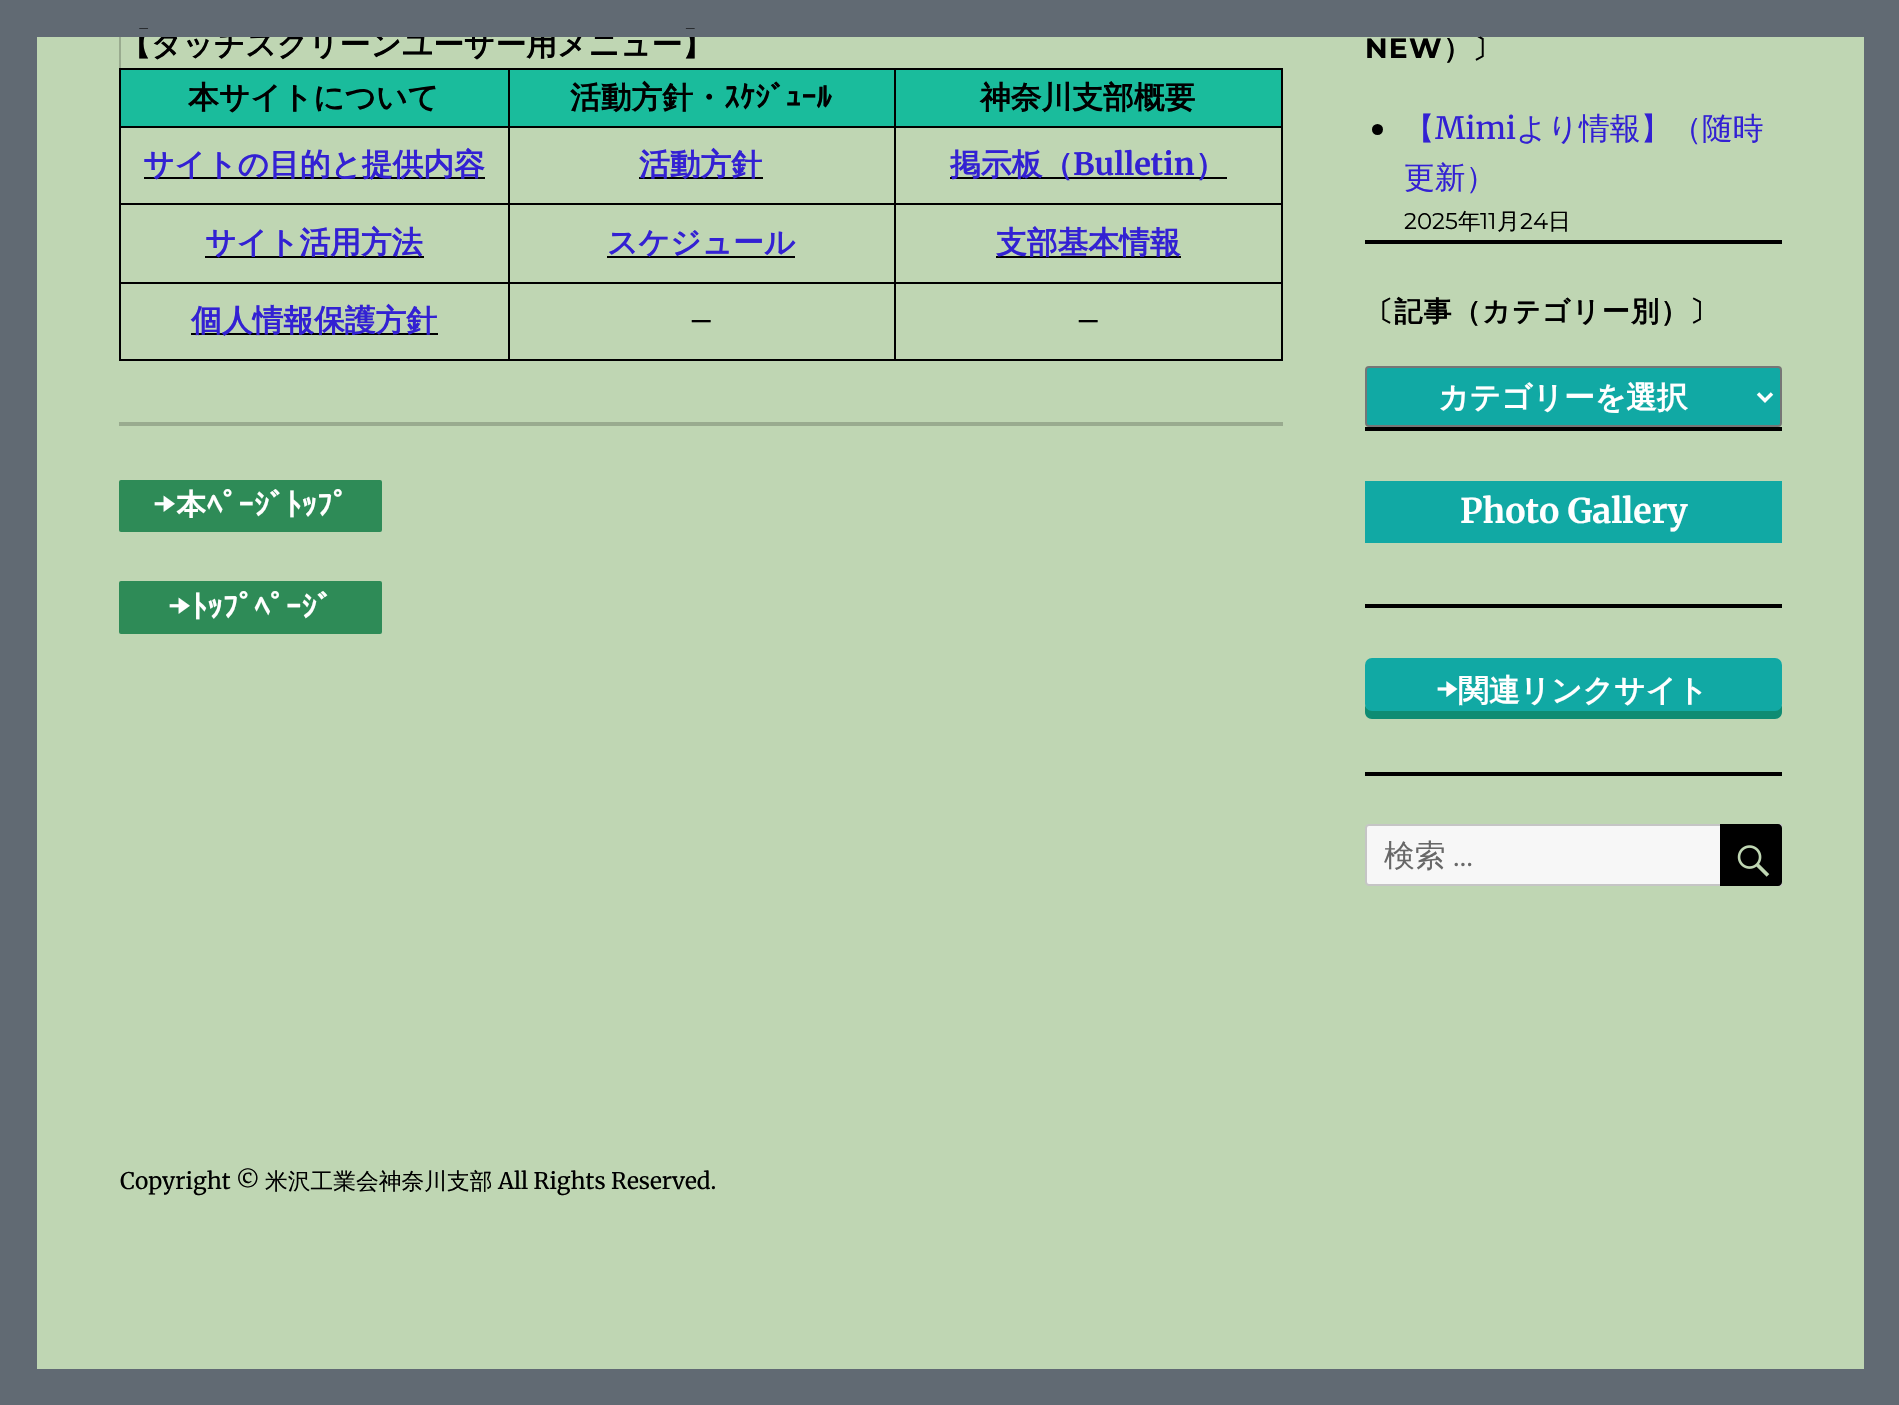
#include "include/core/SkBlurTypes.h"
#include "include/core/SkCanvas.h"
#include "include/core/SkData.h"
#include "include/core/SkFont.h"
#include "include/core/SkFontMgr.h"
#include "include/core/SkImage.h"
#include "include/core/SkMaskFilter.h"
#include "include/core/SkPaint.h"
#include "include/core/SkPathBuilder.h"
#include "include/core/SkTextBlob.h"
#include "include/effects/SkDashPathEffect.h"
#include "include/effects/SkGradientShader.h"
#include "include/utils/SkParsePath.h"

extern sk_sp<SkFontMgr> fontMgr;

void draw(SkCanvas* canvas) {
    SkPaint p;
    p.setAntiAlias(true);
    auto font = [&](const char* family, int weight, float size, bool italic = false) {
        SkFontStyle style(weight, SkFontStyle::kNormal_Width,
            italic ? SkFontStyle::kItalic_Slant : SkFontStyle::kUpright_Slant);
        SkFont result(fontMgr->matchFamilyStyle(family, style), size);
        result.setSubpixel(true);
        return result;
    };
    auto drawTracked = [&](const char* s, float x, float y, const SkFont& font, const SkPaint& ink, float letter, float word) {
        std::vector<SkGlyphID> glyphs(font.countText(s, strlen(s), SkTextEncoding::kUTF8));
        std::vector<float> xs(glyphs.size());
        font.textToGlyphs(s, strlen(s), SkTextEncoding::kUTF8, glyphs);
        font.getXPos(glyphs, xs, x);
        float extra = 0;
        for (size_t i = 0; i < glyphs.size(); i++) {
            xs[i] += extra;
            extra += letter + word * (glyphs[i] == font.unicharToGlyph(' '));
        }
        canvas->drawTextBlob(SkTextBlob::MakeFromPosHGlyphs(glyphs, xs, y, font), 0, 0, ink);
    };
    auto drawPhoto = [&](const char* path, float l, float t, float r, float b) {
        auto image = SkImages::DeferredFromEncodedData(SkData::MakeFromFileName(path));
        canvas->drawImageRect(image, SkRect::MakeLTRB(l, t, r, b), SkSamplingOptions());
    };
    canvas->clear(0xFF616A73);
    p.setColor(0xFFBFD6B3);
    canvas->drawRect(SkRect::MakeLTRB(37, 37, 1864, 1369), p);
    p.setColor(0xFF99AB8F);
    canvas->drawRect(SkRect::MakeLTRB(119, 37, 121, 68), p);
    auto font1 = font("WenQuanYi Zen Hei", 700, 30.75f);
    p.setColor(0xFF000000);
    canvas->drawString("【タッチスクリーンユーザー用メニュー】", 120, 55, font1, p);
    {
        const struct { float l, t, r, b; SkColor color; } items[] = {
            {121, 70, 508, 126, 0xFF1ABC9C},
            {894, 68, 1283, 70, 0xFF000000},
            {894, 126, 1283, 128, 0xFF000000},
            {894, 203, 1283, 205, 0xFF000000},
            {894, 282, 1283, 284, 0xFF000000},
            {1281, 282, 1283, 361, 0xFF000000},
            {894, 359, 1283, 361, 0xFF000000},
            {894, 282, 896, 361, 0xFF000000},
            {508, 282, 896, 284, 0xFF000000},
            {894, 203, 896, 284, 0xFF000000},
            {508, 203, 896, 205, 0xFF000000},
            {894, 126, 896, 205, 0xFF000000},
            {508, 126, 896, 128, 0xFF000000},
            {894, 68, 896, 128, 0xFF000000},
            {508, 68, 896, 70, 0xFF000000},
            {508, 359, 896, 361, 0xFF000000},
            {508, 282, 510, 361, 0xFF000000},
            {119, 282, 509, 284, 0xFF000000},
            {508, 203, 510, 284, 0xFF000000},
            {119, 203, 509, 205, 0xFF000000},
            {508, 126, 510, 205, 0xFF000000},
            {119, 126, 509, 128, 0xFF000000},
            {508, 68, 510, 128, 0xFF000000},
            {119, 68, 509, 70, 0xFF000000},
            {119, 359, 509, 361, 0xFF000000},
            {119, 282, 121, 361, 0xFF000000},
            {119, 203, 121, 284, 0xFF000000},
            {119, 126, 121, 205, 0xFF000000},
            {119, 68, 121, 128, 0xFF000000},
        };
        for (auto [l, t, r, b, color] : items) {
            p.setColor(color);
            canvas->drawRect(SkRect::MakeLTRB(l, t, r, b), p);
        }
    }
    canvas->drawString("本サイトについて", 188, 108, font1, p);
    p.setColor(0xFF1ABC9C);
    canvas->drawRect(SkRect::MakeLTRB(510, 70, 894, 126), p);
    p.setColor(0xFF000000);
    canvas->drawString("活動方針・", 570, 108, font1, p);
    auto font2 = font("IPAPGothic", 700, 30.75f);
    canvas->drawString("ｽｹｼﾞｭｰﾙ", 724, 108, font2, p);
    {
        const struct { float l, t, r, b; SkColor color; } items[] = {
            {896, 70, 1281, 126, 0xFF1ABC9C},
            {1281, 203, 1283, 284, 0xFF000000},
            {1281, 126, 1283, 205, 0xFF000000},
            {1281, 68, 1283, 128, 0xFF000000},
        };
        for (auto [l, t, r, b, color] : items) {
            p.setColor(color);
            canvas->drawRect(SkRect::MakeLTRB(l, t, r, b), p);
        }
    }
    canvas->drawString("神奈川支部概要", 980, 108, font1, p);
    canvas->drawRect(SkRect::MakeLTRB(144, 177, 485, 179), p);
    p.setColor(0xFF3321D3);
    canvas->drawString("サイトの目的と提供内容", 143, 175, font1, p);
    p.setColor(0xFF000000);
    canvas->drawRect(SkRect::MakeLTRB(639, 177, 763, 179), p);
    p.setColor(0xFF3321D3);
    canvas->drawString("活動方針", 639, 175, font1, p);
    p.setColor(0xFF000000);
    canvas->drawRect(SkRect::MakeLTRB(950, 177, 1227, 179), p);
    p.setColor(0xFF3321D3);
    canvas->drawString("掲示板（", 950, 175, font1, p);
    auto font3 = font("Merriweather", 700, 30.75f);
    canvas->drawString("Bulletin", 1073, 175, font3, p);
    canvas->drawString("）", 1195, 175, font1, p);
    p.setColor(0xFF000000);
    canvas->drawRect(SkRect::MakeLTRB(205, 256, 424, 258), p);
    p.setColor(0xFF3321D3);
    canvas->drawString("サイト活用方法", 205, 253, font1, p);
    p.setColor(0xFF000000);
    canvas->drawRect(SkRect::MakeLTRB(607, 256, 795, 258), p);
    p.setColor(0xFF3321D3);
    canvas->drawString("スケジュール", 607, 253, font1, p);
    p.setColor(0xFF000000);
    canvas->drawRect(SkRect::MakeLTRB(996, 256, 1181, 258), p);
    p.setColor(0xFF3321D3);
    canvas->drawString("支部基本情報", 996, 253, font1, p);
    p.setColor(0xFF000000);
    canvas->drawRect(SkRect::MakeLTRB(191, 333, 438, 335), p);
    p.setColor(0xFF3321D3);
    canvas->drawString("個人情報保護方針", 191, 331, font1, p);
    auto font4 = font("Merriweather", 400, 30.75f);
    p.setColor(0xFF000000);
    canvas->drawString("–", 689, 331, font4, p);
    canvas->drawString("–", 1076, 331, font4, p);
    p.setColor(0xFF99AB8F);
    canvas->drawRect(SkRect::MakeLTRB(119, 422, 1283, 426), p);
    p.setColor(0xFF2E8B57);
    canvas->drawRoundRect(SkRect::MakeLTRB(119, 480, 382, 532), 2, 2, p);
    auto font5 = font("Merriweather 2", 700, 31.5f);
    p.setColor(0xFFFFFFFF);
    canvas->drawString("➡", 154, 516, font5, p);
    auto font6 = font("IPAPGothic", 700, 31.5f);
    canvas->drawString("本ﾍﾟｰｼﾞﾄｯﾌﾟ", 175, 516, font6, p);
    p.setColor(0xFF2E8B57);
    canvas->drawRoundRect(SkRect::MakeLTRB(119, 581, 382, 634), 2, 2, p);
    p.setColor(0xFFFFFFFF);
    canvas->drawString("➡", 169, 618, font5, p);
    canvas->drawString("ﾄｯﾌﾟﾍﾟｰｼﾞ", 191, 618, font6, p);
    auto font7 = font("Montserrat", 700, 28);
    p.setColor(0xFF000000);
    drawTracked("NEW", 1365, 58, font7, p, 1.25f, 0);
    auto font8 = font("WenQuanYi Zen Hei", 700, 28);
    drawTracked("）〕", 1443, 58, font8, p, 1.25f, 0);
    canvas->drawCircle(1377.5f, 129.5f, 5.5f, p);
    auto font9 = font("WenQuanYi Zen Hei", 500, 30.75f);
    p.setColor(0xFF3321D3);
    canvas->drawString("【", 1404, 139, font9, p);
    canvas->drawString("Mimi", 1435, 139, font4, p);
    canvas->drawString("より情報】（随時", 1516, 139, font9, p);
    canvas->drawString("更新）", 1404, 188, font9, p);
    auto font10 = font("Montserrat", 400, 22.75f);
    p.setColor(0xFF000000);
    canvas->drawString("2025", 1404, 229, font10, p);
    auto font11 = font("WenQuanYi Zen Hei", 500, 22.75f);
    canvas->drawString("年", 1458, 229, font11, p);
    canvas->drawString("11", 1480, 229, font10, p);
    canvas->drawString("月", 1497, 229, font11, p);
    canvas->drawString("24", 1520, 229, font10, p);
    canvas->drawString("日", 1548, 229, font11, p);
    canvas->drawRect(SkRect::MakeLTRB(1365, 240, 1782, 244), p);
    drawTracked("〔記事（カテゴリー別）〕", 1365, 321, font8, p, 1.25f, 0);
    p.setColor(0xFF11A9A4);
    canvas->drawRoundRect(SkRect::MakeLTRB(1366, 367, 1781, 426), 3, 3, p);
    p.setStyle(SkPaint::kStroke_Style);
    p.setStrokeWidth(2);
    p.setColor(0xFF767676);
    canvas->drawRoundRect(SkRect::MakeLTRB(1366, 367, 1781, 426), 3, 3, p);
    p.setStrokeWidth(3.5f);
    p.setColor(0xFFFFFFFF);
    canvas->drawPath(SkPathBuilder().moveTo(1758, 393.5f).lineTo(1765, 400.5f).lineTo(1772, 393.5f).detach(), p);
    p.setStyle(SkPaint::kFill_Style);
    canvas->drawString("カテゴリーを選択", 1438, 408, font1, p);
    p.setColor(0xFF000000);
    canvas->drawRect(SkRect::MakeLTRB(1365, 427, 1782, 431), p);
    p.setColor(0xFF11A9A4);
    canvas->drawRect(SkRect::MakeLTRB(1365, 481, 1782, 543), p);
    auto font12 = font("Merriweather", 700, 34);
    p.setColor(0xFFFFFFFF);
    canvas->drawString("Photo Gallery", 1460, 523, font12, p);
    p.setColor(0xFF000000);
    canvas->drawRect(SkRect::MakeLTRB(1365, 604, 1782, 608), p);
    p.setColor(0xFF0E8C73);
    canvas->drawPath(SkPathBuilder().moveTo(1365, 704).lineTo(1365, 712).cubicTo(1365, 716, 1368, 719, 1372, 719).lineTo(1775, 719).cubicTo(1779, 719, 1782, 716, 1782, 712).lineTo(1782, 674).lineTo(1782, 671).lineTo(1782, 704).cubicTo(1782, 707, 1778, 710, 1774, 710).lineTo(1372, 710).cubicTo(1368, 710, 1365, 707, 1365, 704).close().detach(), p);
    p.setColor(0xFF11A9A4);
    canvas->drawRoundRect(SkRect::MakeLTRB(1365, 658, 1782, 711), 7, 7, p);
    auto font13 = font("Merriweather 2", 700, 30.75f);
    p.setColor(0xFFFFFFFF);
    canvas->drawString("➡", 1437, 701, font13, p);
    canvas->drawString("関連リンクサイト", 1458, 701, font1, p);
    p.setColor(0xFF000000);
    canvas->drawRect(SkRect::MakeLTRB(1365, 772, 1782, 776), p);
    p.setColor(0xFFF7F7F7);
    canvas->drawPath(SkPathBuilder().moveTo(1369, 824).lineTo(1782, 824).lineTo(1782, 886).lineTo(1369, 886).cubicTo(1367, 886, 1365, 884, 1365, 882).lineTo(1365, 828).cubicTo(1365, 826, 1367, 824, 1369, 824).close().detach(), p);
    p.setStyle(SkPaint::kStroke_Style);
    p.setStrokeWidth(2);
    p.setColor(0x33000000);
    canvas->drawPath(SkPathBuilder().moveTo(1369, 825).lineTo(1781, 825).lineTo(1781, 885).lineTo(1369, 885).cubicTo(1367.5f, 885, 1366, 883.5f, 1366, 882).lineTo(1366, 828).cubicTo(1366, 826.5f, 1367.5f, 825, 1369, 825).close().detach(), p);
    p.setStyle(SkPaint::kFill_Style);
    p.setColor(0xFF686868);
    canvas->drawString("検索", 1384, 866, font9, p);
    auto font14 = font("Montserrat", 400, 30.75f);
    canvas->drawString("…", 1453, 866, font14, p);
    p.setColor(0xFF000000);
    canvas->drawPath(SkPathBuilder().moveTo(1720, 824).lineTo(1778, 824).cubicTo(1780, 824, 1782, 826, 1782, 828).lineTo(1782, 882).cubicTo(1782, 884, 1780, 886, 1778, 886).lineTo(1720, 886).close().detach(), p);
    drawPhoto("media/1.png", 1737, 845, 1770, 877);
    auto font15 = font("Merriweather", 400, 22.75f);
    canvas->drawString("Copyright ©", 120, 1189, font15, p);
    canvas->drawString("米沢工業会神奈川支部", 265, 1189, font11, p);
    canvas->drawString("All Rights Reserved.", 498, 1189, font15, p);
    p.setColor(0xFF616A73);
    canvas->drawRect(SkRect::MakeLTRB(139, 29, 1480, 37), p);
}
